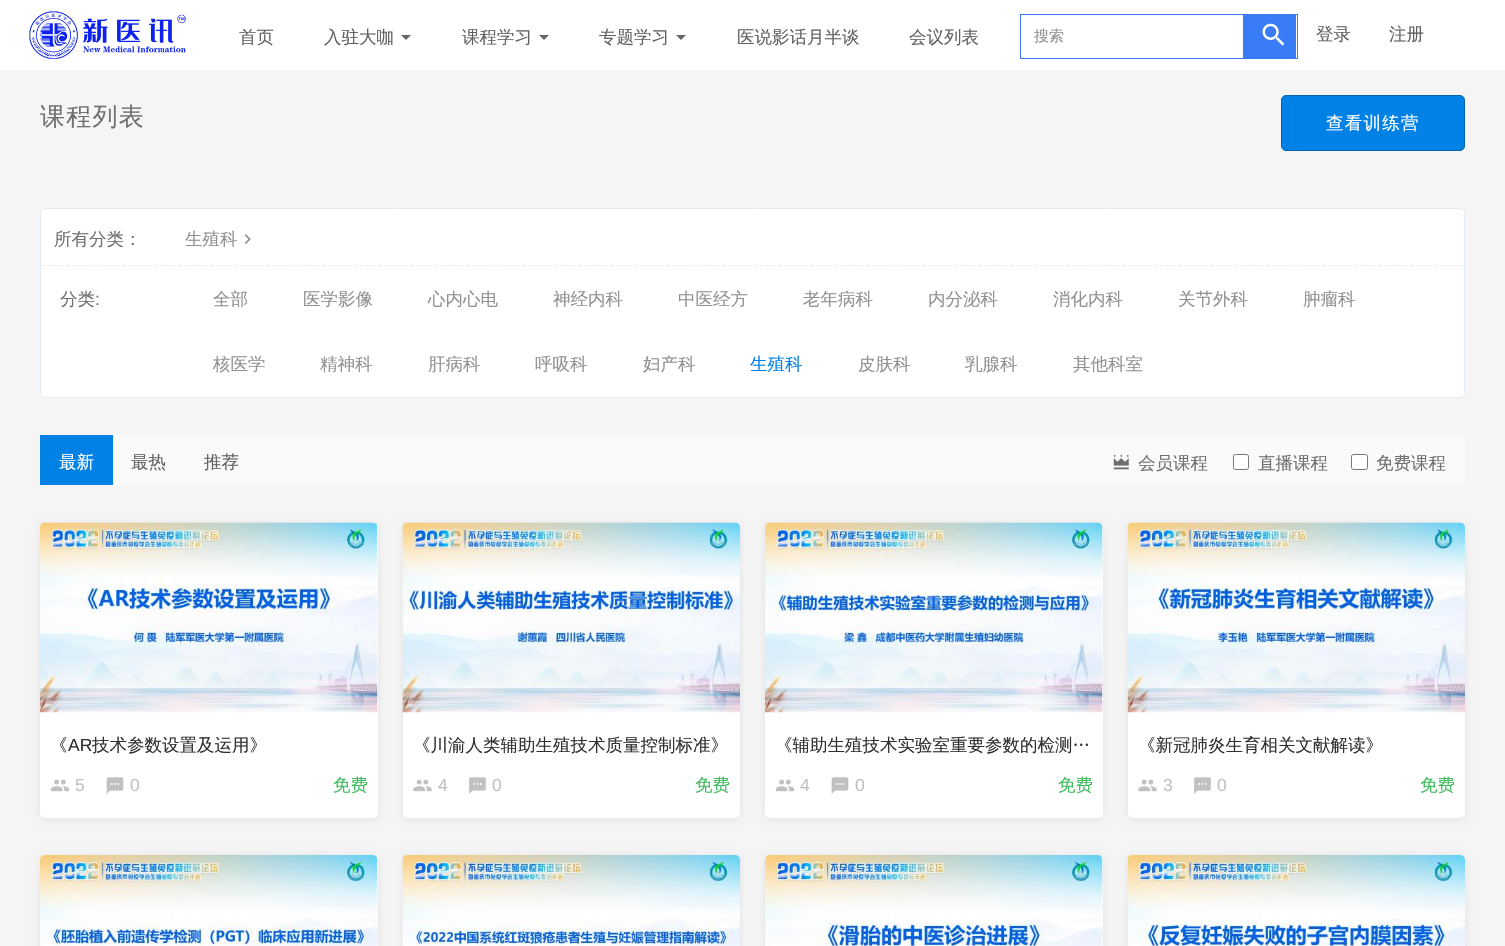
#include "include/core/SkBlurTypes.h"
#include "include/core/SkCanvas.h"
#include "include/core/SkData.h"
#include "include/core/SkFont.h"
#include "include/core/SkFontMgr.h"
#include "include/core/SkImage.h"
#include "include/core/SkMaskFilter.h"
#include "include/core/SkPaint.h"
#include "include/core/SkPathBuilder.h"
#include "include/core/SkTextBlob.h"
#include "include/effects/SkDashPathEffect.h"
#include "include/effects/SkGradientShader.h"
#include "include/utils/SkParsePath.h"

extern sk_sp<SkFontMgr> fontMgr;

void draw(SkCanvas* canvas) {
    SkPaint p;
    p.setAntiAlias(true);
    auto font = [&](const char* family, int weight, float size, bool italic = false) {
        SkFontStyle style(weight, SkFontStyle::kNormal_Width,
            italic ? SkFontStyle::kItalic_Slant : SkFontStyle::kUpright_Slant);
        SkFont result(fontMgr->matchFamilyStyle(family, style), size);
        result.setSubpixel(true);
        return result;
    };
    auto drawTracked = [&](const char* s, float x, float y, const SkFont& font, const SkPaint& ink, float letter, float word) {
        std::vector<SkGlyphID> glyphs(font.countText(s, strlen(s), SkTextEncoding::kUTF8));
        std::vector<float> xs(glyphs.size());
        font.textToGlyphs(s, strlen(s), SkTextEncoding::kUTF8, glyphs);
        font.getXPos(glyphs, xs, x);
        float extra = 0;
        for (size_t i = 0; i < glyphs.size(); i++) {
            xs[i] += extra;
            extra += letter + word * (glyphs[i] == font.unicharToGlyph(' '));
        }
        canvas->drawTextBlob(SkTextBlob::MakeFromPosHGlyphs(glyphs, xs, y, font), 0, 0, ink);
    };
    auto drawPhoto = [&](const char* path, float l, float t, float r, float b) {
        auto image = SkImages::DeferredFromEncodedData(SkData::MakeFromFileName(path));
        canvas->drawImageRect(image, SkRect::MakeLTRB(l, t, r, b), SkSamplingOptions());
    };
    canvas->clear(0xFFF5F5F5);
    p.setColor(0xFFFFFFFF);
    canvas->drawRect(SkRect::MakeLTRB(0, 0, 1505, 70), p);
    drawPhoto("media/1.png", 29, 11, 186, 59);
    auto font1 = font("WenQuanYi Zen Hei", 500, 17.5f);
    p.setColor(0xFF616161);
    canvas->drawString("首页", 239, 43, font1, p);
    canvas->drawString("入驻大咖", 324, 43, font1, p);
    p.setColor(0xFF666666);
    canvas->drawPath(SkPathBuilder().moveTo(401, 35).lineTo(411, 35).lineTo(406, 40).close().detach(), p);
    p.setColor(0xFF616161);
    canvas->drawString("课程学习", 462, 43, font1, p);
    p.setColor(0xFF666666);
    canvas->drawPath(SkPathBuilder().moveTo(539, 35).lineTo(549, 35).lineTo(544, 40).close().detach(), p);
    p.setColor(0xFF616161);
    canvas->drawString("专题学习", 599, 43, font1, p);
    p.setColor(0xFF666666);
    canvas->drawPath(SkPathBuilder().moveTo(676, 35).lineTo(686, 35).lineTo(681, 40).close().detach(), p);
    p.setColor(0xFF616161);
    canvas->drawString("医说影话月半谈", 737, 43, font1, p);
    canvas->drawString("会议列表", 909, 43, font1, p);
    p.setStyle(SkPaint::kStroke_Style);
    p.setStrokeWidth(1);
    p.setColor(0xFF3A7BF7);
    canvas->drawRect(SkRect::MakeLTRB(1020.5f, 14.5f, 1297.5f, 58.5f), p);
    auto font2 = font("WenQuanYi Zen Hei", 500, 15);
    p.setStyle(SkPaint::kFill_Style);
    p.setColor(0xFF919191);
    canvas->drawString("搜索", 1034, 41, font2, p);
    p.setColor(0xFF3A7BF7);
    canvas->drawRect(SkRect::MakeLTRB(1243, 15, 1296, 58), p);
    drawPhoto("media/2.png", 1262, 23, 1285, 46);
    p.setColor(0xFF616161);
    canvas->drawString("登录", 1316, 40, font1, p);
    canvas->drawString("注册", 1389, 40, font1, p);
    auto font3 = font("WenQuanYi Zen Hei", 500, 25);
    p.setColor(0xFF707070);
    drawTracked("课程列表", 40, 125, font3, p, 1.25f, 0);
    p.setColor(0xFF0081E6);
    canvas->drawRoundRect(SkRect::MakeLTRB(1281.5f, 95.5f, 1464.5f, 150.5f), 4.5f, 4.5f, p);
    p.setStyle(SkPaint::kStroke_Style);
    p.setColor(0xFF0064B3);
    canvas->drawRoundRect(SkRect::MakeLTRB(1281.5f, 95.5f, 1464.5f, 150.5f), 4.5f, 4.5f, p);
    p.setStyle(SkPaint::kFill_Style);
    p.setColor(0xFFFFFFFF);
    drawTracked("查看训练营", 1326, 129, font1, p, 1.25f, 0);
    canvas->drawRoundRect(SkRect::MakeLTRB(40.5f, 208.5f, 1464.5f, 397.5f), 4.5f, 4.5f, p);
    p.setStyle(SkPaint::kStroke_Style);
    p.setColor(0xFFE4ECF3);
    canvas->drawRoundRect(SkRect::MakeLTRB(40.5f, 208.5f, 1464.5f, 397.5f), 4.5f, 4.5f, p);
    p.setStrokeWidth(1.2f);
    p.setPathEffect(SkDashPathEffect::Make({{3.75f, 2.5f}}, 0));
    canvas->drawPath(SkPathBuilder().moveTo(41, 265.5f).lineTo(1464, 265.5f).detach(), p);
    p.setPathEffect(nullptr);
    p.setStyle(SkPaint::kFill_Style);
    p.setColor(0xFF707070);
    canvas->drawString("所有分类：", 54, 245, font1, p);
    p.setColor(0xFF919191);
    canvas->drawString("生殖科", 185, 245, font1, p);
    drawPhoto("media/3.png", 244, 234, 251, 244);
    p.setColor(0xFF707070);
    canvas->drawString("分类", 60, 305, font1, p);
    auto font4 = font("Liberation Sans", 400, 17.5f);
    canvas->drawString(":", 95, 305, font4, p);
    p.setColor(0xFF919191);
    {
        const struct { const char* s; float x, y; } items[] = {
            {"全部", 213, 305},
            {"医学影像", 303, 305},
            {"心内心电", 428, 305},
            {"神经内科", 553, 305},
            {"中医经方", 678, 305},
            {"老年病科", 803, 305},
            {"内分泌科", 928, 305},
            {"消化内科", 1053, 305},
            {"关节外科", 1178, 305},
            {"肿瘤科", 1303, 305},
            {"核医学", 213, 370},
            {"精神科", 320, 370},
            {"肝病科", 428, 370},
            {"呼吸科", 535, 370},
            {"妇产科", 643, 370},
        };
        for (auto [s, x, y] : items) {
            canvas->drawString(s, x, y, font1, p);
        }
    }
    p.setColor(0xFF0081E6);
    canvas->drawString("生殖科", 750, 370, font1, p);
    p.setColor(0xFF919191);
    {
        const struct { const char* s; float x, y; } items[] = {
            {"皮肤科", 858, 370},
            {"乳腺科", 965, 370},
            {"其他科室", 1073, 370},
        };
        for (auto [s, x, y] : items) {
            canvas->drawString(s, x, y, font1, p);
        }
    }
    p.setColor(0xFFFAFAFA);
    canvas->drawRoundRect(SkRect::MakeLTRB(40, 435, 1465, 485), 5, 5, p);
    p.setColor(0xFF0081E6);
    canvas->drawRect(SkRect::MakeLTRB(40, 435, 113, 485), p);
    p.setColor(0xFFFFFFFF);
    canvas->drawString("最新", 59, 468, font1, p);
    p.setColor(0xFF616161);
    canvas->drawString("最热", 131, 468, font1, p);
    canvas->drawString("推荐", 204, 468, font1, p);
    drawPhoto("media/4.png", 1113, 455, 1129, 470);
    p.setColor(0xFF707070);
    canvas->drawString("会员课程", 1138, 469, font1, p);
    p.setColor(0xFFFFFFFF);
    canvas->drawRoundRect(SkRect::MakeLTRB(1233.5f, 454.5f, 1248.5f, 469.5f), 2, 2, p);
    p.setStyle(SkPaint::kStroke_Style);
    p.setStrokeWidth(1);
    p.setColor(0xFF767676);
    canvas->drawRoundRect(SkRect::MakeLTRB(1233.5f, 454.5f, 1248.5f, 469.5f), 2, 2, p);
    p.setStyle(SkPaint::kFill_Style);
    p.setColor(0xFF707070);
    canvas->drawString("直播课程", 1258, 469, font1, p);
    p.setColor(0xFFFFFFFF);
    canvas->drawRoundRect(SkRect::MakeLTRB(1351.5f, 454.5f, 1367.5f, 469.5f), 2, 2, p);
    p.setStyle(SkPaint::kStroke_Style);
    p.setColor(0xFF767676);
    canvas->drawRoundRect(SkRect::MakeLTRB(1351.5f, 454.5f, 1367.5f, 469.5f), 2, 2, p);
    p.setStyle(SkPaint::kFill_Style);
    p.setColor(0xFF707070);
    canvas->drawString("免费课程", 1376, 469, font1, p);
    p.setColor(0x14000000);
    p.setMaskFilter(SkMaskFilter::MakeBlur(kNormal_SkBlurStyle, 4));
    canvas->drawRoundRect(SkRect::MakeLTRB(40, 524, 378, 819), 5, 5, p);
    p.setMaskFilter(nullptr);
    p.setColor(0xFFFFFFFF);
    canvas->drawRoundRect(SkRect::MakeLTRB(40, 523, 378, 818), 5, 5, p);
    drawPhoto("media/5.png", 40, 522, 378, 713);
    p.setColor(0xFF313131);
    canvas->drawString("《", 50, 751, font1, p);
    canvas->drawString("AR", 68, 751, font4, p);
    canvas->drawString("技术参数设置及运用》", 92, 751, font1, p);
    drawPhoto("media/6.png", 50, 779, 70, 792);
    p.setColor(0xFFC1C1C1);
    canvas->drawString("5", 75, 791, font4, p);
    drawPhoto("media/7.png", 106, 777, 124, 794);
    canvas->drawString("0", 130, 791, font4, p);
    p.setColor(0xFF43BC60);
    canvas->drawString("免费", 333, 791, font1, p);
    p.setColor(0x14000000);
    p.setMaskFilter(SkMaskFilter::MakeBlur(kNormal_SkBlurStyle, 4));
    canvas->drawRoundRect(SkRect::MakeLTRB(403, 524, 740, 819), 5, 5, p);
    p.setMaskFilter(nullptr);
    p.setColor(0xFFFFFFFF);
    canvas->drawRoundRect(SkRect::MakeLTRB(403, 523, 740, 818), 5, 5, p);
    drawPhoto("media/8.png", 402, 522, 740, 713);
    p.setColor(0xFF313131);
    canvas->drawString("《川渝人类辅助生殖技术质量控制标准》", 413, 751, font1, p);
    drawPhoto("media/9.png", 413, 779, 432, 792);
    p.setColor(0xFFC1C1C1);
    canvas->drawString("4", 438, 791, font4, p);
    drawPhoto("media/10.png", 469, 777, 486, 794);
    canvas->drawString("0", 492, 791, font4, p);
    p.setColor(0xFF43BC60);
    canvas->drawString("免费", 695, 791, font1, p);
    p.setColor(0x14000000);
    p.setMaskFilter(SkMaskFilter::MakeBlur(kNormal_SkBlurStyle, 4));
    canvas->drawRoundRect(SkRect::MakeLTRB(765, 524, 1103, 819), 5, 5, p);
    p.setMaskFilter(nullptr);
    p.setColor(0xFFFFFFFF);
    canvas->drawRoundRect(SkRect::MakeLTRB(765, 523, 1103, 818), 5, 5, p);
    drawPhoto("media/11.png", 765, 522, 1103, 713);
    p.setColor(0xFF313131);
    canvas->drawString("《辅助生殖技术实验室重要参数的检测…", 775, 751, font1, p);
    drawPhoto("media/6.png", 775, 779, 795, 792);
    p.setColor(0xFFC1C1C1);
    canvas->drawString("4", 800, 791, font4, p);
    drawPhoto("media/7.png", 831, 777, 849, 794);
    canvas->drawString("0", 855, 791, font4, p);
    p.setColor(0xFF43BC60);
    canvas->drawString("免费", 1058, 791, font1, p);
    p.setColor(0x14000000);
    p.setMaskFilter(SkMaskFilter::MakeBlur(kNormal_SkBlurStyle, 4));
    canvas->drawRoundRect(SkRect::MakeLTRB(1128, 524, 1465, 819), 5, 5, p);
    p.setMaskFilter(nullptr);
    p.setColor(0xFFFFFFFF);
    canvas->drawRoundRect(SkRect::MakeLTRB(1128, 523, 1465, 818), 5, 5, p);
    drawPhoto("media/12.png", 1127, 522, 1465, 713);
    p.setColor(0xFF313131);
    canvas->drawString("《新冠肺炎生育相关文献解读》", 1138, 751, font1, p);
    drawPhoto("media/9.png", 1138, 779, 1157, 792);
    p.setColor(0xFFC1C1C1);
    canvas->drawString("3", 1163, 791, font4, p);
    drawPhoto("media/10.png", 1194, 777, 1211, 794);
    canvas->drawString("0", 1217, 791, font4, p);
    p.setColor(0xFF43BC60);
    canvas->drawString("免费", 1420, 791, font1, p);
    p.setColor(0x14000000);
    p.setMaskFilter(SkMaskFilter::MakeBlur(kNormal_SkBlurStyle, 4));
    canvas->drawRoundRect(SkRect::MakeLTRB(40, 856, 378, 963), 5, 5, p);
    p.setMaskFilter(nullptr);
    p.setColor(0xFFFFFFFF);
    canvas->drawRoundRect(SkRect::MakeLTRB(40, 855, 378, 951), 5, 5, p);
    drawPhoto("media/13.png", 40, 855, 378, 946);
    p.setColor(0x14000000);
    p.setMaskFilter(SkMaskFilter::MakeBlur(kNormal_SkBlurStyle, 4));
    canvas->drawRoundRect(SkRect::MakeLTRB(403, 856, 740, 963), 5, 5, p);
    p.setMaskFilter(nullptr);
    drawPhoto("media/14.png", 402, 855, 740, 946);
    p.setMaskFilter(SkMaskFilter::MakeBlur(kNormal_SkBlurStyle, 4));
    canvas->drawRoundRect(SkRect::MakeLTRB(765, 856, 1103, 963), 5, 5, p);
    p.setMaskFilter(nullptr);
    p.setColor(0xFFFFFFFF);
    canvas->drawRoundRect(SkRect::MakeLTRB(765, 855, 1103, 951), 5, 5, p);
    drawPhoto("media/15.png", 765, 855, 1103, 946);
    p.setColor(0x14000000);
    p.setMaskFilter(SkMaskFilter::MakeBlur(kNormal_SkBlurStyle, 4));
    canvas->drawRoundRect(SkRect::MakeLTRB(1128, 856, 1465, 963), 5, 5, p);
    p.setMaskFilter(nullptr);
    drawPhoto("media/16.png", 1127, 855, 1465, 946);
}
